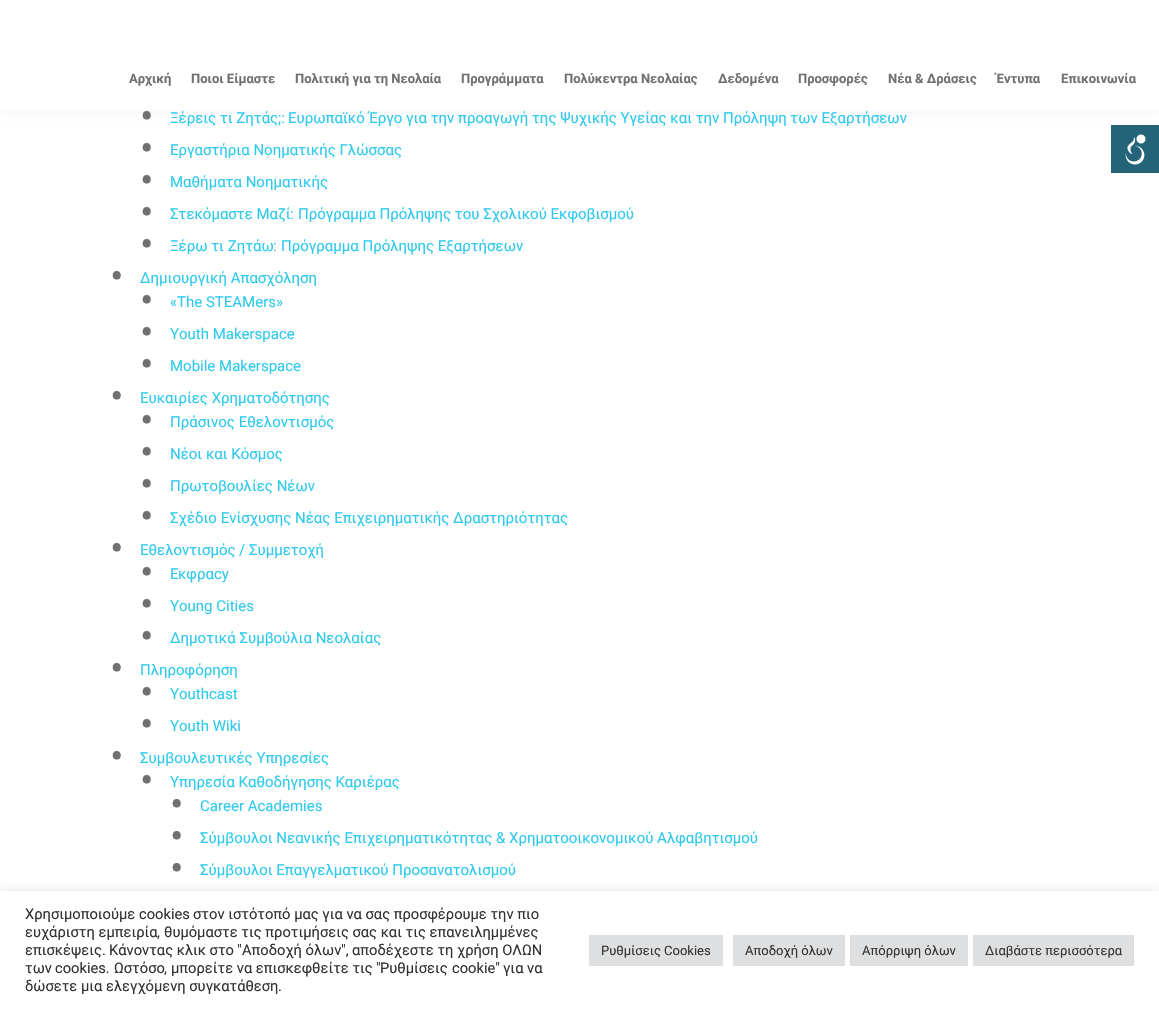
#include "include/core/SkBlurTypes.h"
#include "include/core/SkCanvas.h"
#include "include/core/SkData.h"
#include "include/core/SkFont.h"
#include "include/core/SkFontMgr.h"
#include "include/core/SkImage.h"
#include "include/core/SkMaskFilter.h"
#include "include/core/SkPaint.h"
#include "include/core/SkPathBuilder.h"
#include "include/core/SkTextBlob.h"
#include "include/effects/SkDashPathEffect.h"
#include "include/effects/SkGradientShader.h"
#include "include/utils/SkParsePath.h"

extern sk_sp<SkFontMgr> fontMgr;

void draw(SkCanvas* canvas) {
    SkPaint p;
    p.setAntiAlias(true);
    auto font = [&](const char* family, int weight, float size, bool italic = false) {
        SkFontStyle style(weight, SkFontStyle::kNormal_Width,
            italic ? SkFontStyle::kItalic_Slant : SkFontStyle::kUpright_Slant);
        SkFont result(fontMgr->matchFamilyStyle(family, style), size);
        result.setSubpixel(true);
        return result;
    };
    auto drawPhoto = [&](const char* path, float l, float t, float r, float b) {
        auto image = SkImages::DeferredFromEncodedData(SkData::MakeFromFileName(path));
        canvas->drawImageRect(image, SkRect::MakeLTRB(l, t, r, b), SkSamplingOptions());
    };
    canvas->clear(0xFFFFFFFF);
    p.setColor(0x0D000000);
    p.setMaskFilter(SkMaskFilter::MakeBlur(kNormal_SkBlurStyle, 5));
    canvas->drawRect(SkRect::MakeLTRB(0, 0, 1159, 110), p);
    p.setMaskFilter(nullptr);
    p.setColor(0xFFFFFFFF);
    canvas->drawRect(SkRect::MakeLTRB(0, 0, 1159, 110), p);
    auto font1 = font("Roboto", 700, 13);
    p.setColor(0xFF707070);
    {
        const struct { const char* s; float x, y; } items[] = {
            {"Αρχική", 129, 83},
            {"Ποιοι Είμαστε", 191, 83},
            {"Πολιτική για τη Νεολαία", 295, 83},
            {"Προγράμματα", 461, 83},
            {"Πολύκεντρα Νεολαίας", 564, 83},
            {"Δεδομένα", 718, 83},
            {"Προσφορές", 798, 83},
            {"Νέα & Δράσεις", 888, 83},
            {"Έντυπα", 996, 83},
            {"Επικοινωνία", 1061, 83},
        };
        for (auto [s, x, y] : items) {
            canvas->drawString(s, x, y, font1, p);
        }
    }
    auto font2 = font("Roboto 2", 400, 40);
    canvas->drawString("•", 140, 130, font2, p);
    auto font3 = font("Roboto", 400, 15);
    p.setColor(0xFF2EC9EC);
    canvas->drawString("Ξέρεις τι Ζητάς", 170, 123, font3, p);
    auto font4 = font("Roboto 2", 400, 15);
    canvas->drawString(";:", 278, 123, font4, p);
    canvas->drawString("Ευρωπαϊκό Έργο για την προαγωγή της Ψυχικής Υγείας και την Πρόληψη των Εξαρτήσεων", 288, 123, font3, p);
    p.setColor(0xFF707070);
    canvas->drawString("•", 140, 162, font2, p);
    p.setColor(0xFF2EC9EC);
    canvas->drawString("Εργαστήρια Νοηματικής Γλώσσας", 170, 155, font3, p);
    p.setColor(0xFF707070);
    canvas->drawString("•", 140, 194, font2, p);
    p.setColor(0xFF2EC9EC);
    canvas->drawString("Μαθήματα Νοηματικής", 170, 187, font3, p);
    p.setColor(0xFF707070);
    canvas->drawString("•", 140, 226, font2, p);
    p.setColor(0xFF2EC9EC);
    canvas->drawString("Στεκόμαστε Μαζί", 170, 219, font3, p);
    canvas->drawString(":", 290, 219, font4, p);
    canvas->drawString("Πρόγραμμα Πρόληψης του Σχολικού Εκφοβισμού", 298, 219, font3, p);
    p.setColor(0xFF707070);
    canvas->drawString("•", 140, 258, font2, p);
    p.setColor(0xFF2EC9EC);
    canvas->drawString("Ξέρω τι Ζητάω", 170, 251, font3, p);
    canvas->drawString(":", 273, 251, font4, p);
    canvas->drawString("Πρόγραμμα Πρόληψης Εξαρτήσεων", 281, 251, font3, p);
    p.setColor(0xFF707070);
    canvas->drawString("•", 110, 290, font2, p);
    p.setColor(0xFF2EC9EC);
    canvas->drawString("Δημιουργική Απασχόληση", 140, 283, font3, p);
    p.setColor(0xFF707070);
    canvas->drawString("•", 140, 314, font2, p);
    p.setColor(0xFF2EC9EC);
    canvas->drawString("«The STEAMers»", 170, 307, font4, p);
    p.setColor(0xFF707070);
    canvas->drawString("•", 140, 346, font2, p);
    p.setColor(0xFF2EC9EC);
    canvas->drawString("Youth Makerspace", 170, 339, font4, p);
    p.setColor(0xFF707070);
    canvas->drawString("•", 140, 378, font2, p);
    p.setColor(0xFF2EC9EC);
    canvas->drawString("Mobile Makerspace", 170, 371, font4, p);
    p.setColor(0xFF707070);
    canvas->drawString("•", 110, 410, font2, p);
    p.setColor(0xFF2EC9EC);
    canvas->drawString("Ευκαιρίες Χρηματοδότησης", 140, 403, font3, p);
    p.setColor(0xFF707070);
    canvas->drawString("•", 140, 434, font2, p);
    p.setColor(0xFF2EC9EC);
    canvas->drawString("Πράσινος Εθελοντισμός", 170, 427, font3, p);
    p.setColor(0xFF707070);
    canvas->drawString("•", 140, 466, font2, p);
    p.setColor(0xFF2EC9EC);
    canvas->drawString("Νέοι και Κόσμος", 170, 459, font3, p);
    p.setColor(0xFF707070);
    canvas->drawString("•", 140, 498, font2, p);
    p.setColor(0xFF2EC9EC);
    canvas->drawString("Πρωτοβουλίες Νέων", 170, 491, font3, p);
    p.setColor(0xFF707070);
    canvas->drawString("•", 140, 530, font2, p);
    p.setColor(0xFF2EC9EC);
    canvas->drawString("Σχέδιο Ενίσχυσης Νέας Επιχειρηματικής Δραστηριότητας", 170, 523, font3, p);
    p.setColor(0xFF707070);
    canvas->drawString("•", 110, 562, font2, p);
    p.setColor(0xFF2EC9EC);
    canvas->drawString("Εθελοντισμός", 140, 555, font3, p);
    canvas->drawString("/", 239, 555, font4, p);
    canvas->drawString("Συμμετοχή", 249, 555, font3, p);
    p.setColor(0xFF707070);
    canvas->drawString("•", 140, 586, font2, p);
    p.setColor(0xFF2EC9EC);
    canvas->drawString("E", 170, 579, font4, p);
    canvas->drawString("κφρα", 178, 579, font3, p);
    canvas->drawString("cy", 214, 579, font4, p);
    p.setColor(0xFF707070);
    canvas->drawString("•", 140, 618, font2, p);
    p.setColor(0xFF2EC9EC);
    canvas->drawString("Young Cities", 170, 611, font4, p);
    p.setColor(0xFF707070);
    canvas->drawString("•", 140, 650, font2, p);
    p.setColor(0xFF2EC9EC);
    canvas->drawString("Δημοτικά Συμβούλια Νεολαίας", 170, 643, font3, p);
    p.setColor(0xFF707070);
    canvas->drawString("•", 110, 682, font2, p);
    p.setColor(0xFF2EC9EC);
    canvas->drawString("Πληροφόρηση", 140, 675, font3, p);
    p.setColor(0xFF707070);
    canvas->drawString("•", 140, 706, font2, p);
    p.setColor(0xFF2EC9EC);
    canvas->drawString("Youthcast", 170, 699, font4, p);
    p.setColor(0xFF707070);
    canvas->drawString("•", 140, 738, font2, p);
    p.setColor(0xFF2EC9EC);
    canvas->drawString("Youth Wiki", 170, 731, font4, p);
    p.setColor(0xFF707070);
    canvas->drawString("•", 110, 770, font2, p);
    p.setColor(0xFF2EC9EC);
    canvas->drawString("Συμβουλευτικές Υπηρεσίες", 140, 763, font3, p);
    p.setColor(0xFF707070);
    canvas->drawString("•", 140, 794, font2, p);
    p.setColor(0xFF2EC9EC);
    canvas->drawString("Υπηρεσία Καθοδήγησης Καριέρας", 170, 787, font3, p);
    p.setColor(0xFF707070);
    canvas->drawString("•", 170, 818, font2, p);
    p.setColor(0xFF2EC9EC);
    canvas->drawString("Career Academies", 200, 811, font4, p);
    p.setColor(0xFF707070);
    canvas->drawString("•", 170, 850, font2, p);
    p.setColor(0xFF2EC9EC);
    canvas->drawString("Σύμβουλοι Νεανικής Επιχειρηματικότητας", 200, 843, font3, p);
    canvas->drawString("&", 496, 843, font4, p);
    canvas->drawString("Χρηματοοικονομικού Αλφαβητισμού", 509, 843, font3, p);
    p.setColor(0xFF707070);
    canvas->drawString("•", 170, 882, font2, p);
    p.setColor(0xFF2EC9EC);
    canvas->drawString("Σύμβουλοι Επαγγελματικού Προσανατολισμού", 200, 875, font3, p);
    p.setColor(0xFF236478);
    canvas->drawRect(SkRect::MakeLTRB(1111, 125, 1159, 173), p);
    drawPhoto("media/1.png", 1125, 134, 1146, 165);
    p.setColor(0x4DACABAB);
    p.setMaskFilter(SkMaskFilter::MakeBlur(kNormal_SkBlurStyle, 5));
    canvas->drawRect(SkRect::MakeLTRB(0, 890, 1159, 1008), p);
    p.setMaskFilter(nullptr);
    p.setColor(0xFFFFFFFF);
    canvas->drawRect(SkRect::MakeLTRB(0, 891, 1159, 1009), p);
    auto font5 = font("Roboto", 400, 14.7f);
    p.setColor(0xFF333333);
    canvas->drawString("Χρησιμοποιούμε", 25, 919, font5, p);
    auto font6 = font("Roboto 2", 400, 14.7f);
    canvas->drawString("cookies", 139, 919, font6, p);
    canvas->drawString("στον ιστότοπό μας για να σας προσφέρουμε την πιο", 193, 919, font5, p);
    canvas->drawString("ευχάριστη εμπειρία", 25, 937, font5, p);
    canvas->drawString(",", 157, 937, font6, p);
    canvas->drawString("θυμόμαστε τις προτιμήσεις σας και τις επανειλημμένες", 164, 937, font5, p);
    canvas->drawString("επισκέψεις", 25, 955, font5, p);
    canvas->drawString(".", 102, 955, font6, p);
    canvas->drawString("Κάνοντας κλικ στο", 109, 955, font5, p);
    canvas->drawString("\"", 237, 955, font6, p);
    canvas->drawString("Αποδοχή όλων", 242, 955, font5, p);
    canvas->drawString("\",", 341, 955, font6, p);
    canvas->drawString("αποδέχεστε τη χρήση ΟΛΩΝ", 352, 955, font5, p);
    canvas->drawString("των", 25, 973, font5, p);
    canvas->drawString("cookies.", 55, 973, font6, p);
    canvas->drawString("Ωστόσο", 114, 973, font5, p);
    canvas->drawString(",", 164, 973, font6, p);
    canvas->drawString("μπορείτε να επισκεφθείτε τις", 171, 973, font5, p);
    canvas->drawString("\"", 376, 973, font6, p);
    canvas->drawString("Ρυθμίσεις", 380, 973, font5, p);
    canvas->drawString("cookie\"", 452, 973, font6, p);
    canvas->drawString("για να", 503, 973, font5, p);
    canvas->drawString("δώσετε μια ελεγχόμενη συγκατάθεση", 25, 991, font5, p);
    canvas->drawString(".", 278, 991, font6, p);
    p.setColor(0xFFDEDFE0);
    canvas->drawRect(SkRect::MakeLTRB(589, 935, 723, 966), p);
    auto font7 = font("Roboto", 400, 13);
    p.setColor(0xFF333333);
    canvas->drawString("Ρυθμίσεις", 601, 955, font7, p);
    auto font8 = font("Roboto 2", 400, 13);
    canvas->drawString("Cookies", 664, 955, font8, p);
    p.setColor(0xFFDEDFE0);
    canvas->drawRect(SkRect::MakeLTRB(733, 935, 845, 966), p);
    p.setColor(0xFF333333);
    canvas->drawString("Αποδοχή όλων", 745, 955, font7, p);
    p.setColor(0xFFDEDFE0);
    canvas->drawRect(SkRect::MakeLTRB(850, 935, 968, 966), p);
    p.setColor(0xFF333333);
    canvas->drawString("Απόρριψη όλων", 862, 955, font7, p);
    p.setColor(0xFFDEDFE0);
    canvas->drawRect(SkRect::MakeLTRB(973, 935, 1134, 966), p);
    p.setColor(0xFF333333);
    canvas->drawString("Διαβάστε περισσότερα", 985, 955, font7, p);
}
